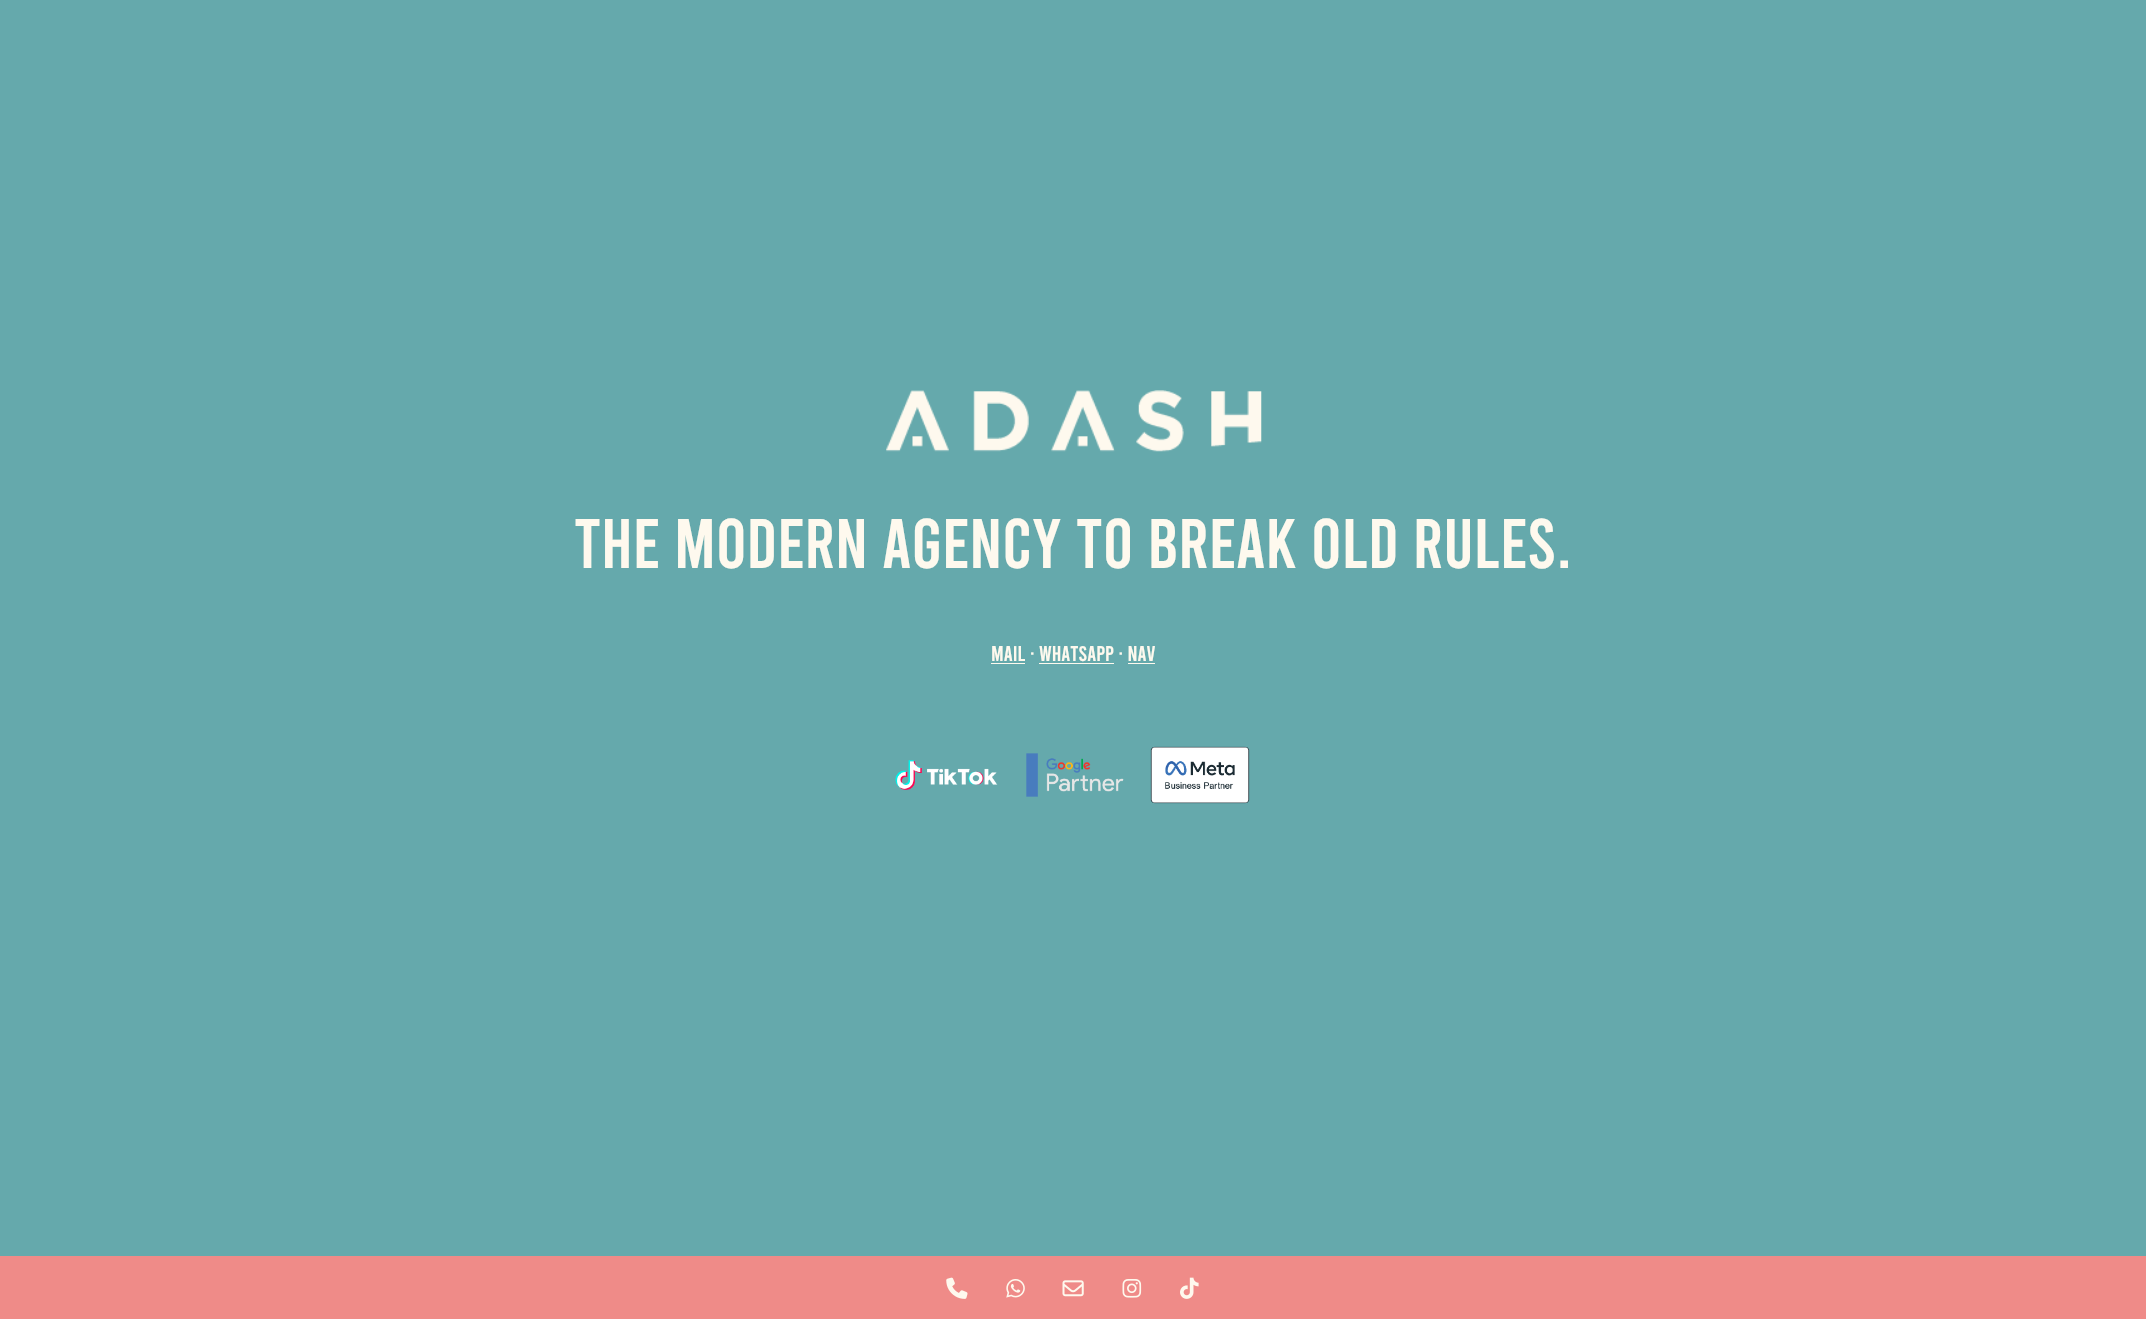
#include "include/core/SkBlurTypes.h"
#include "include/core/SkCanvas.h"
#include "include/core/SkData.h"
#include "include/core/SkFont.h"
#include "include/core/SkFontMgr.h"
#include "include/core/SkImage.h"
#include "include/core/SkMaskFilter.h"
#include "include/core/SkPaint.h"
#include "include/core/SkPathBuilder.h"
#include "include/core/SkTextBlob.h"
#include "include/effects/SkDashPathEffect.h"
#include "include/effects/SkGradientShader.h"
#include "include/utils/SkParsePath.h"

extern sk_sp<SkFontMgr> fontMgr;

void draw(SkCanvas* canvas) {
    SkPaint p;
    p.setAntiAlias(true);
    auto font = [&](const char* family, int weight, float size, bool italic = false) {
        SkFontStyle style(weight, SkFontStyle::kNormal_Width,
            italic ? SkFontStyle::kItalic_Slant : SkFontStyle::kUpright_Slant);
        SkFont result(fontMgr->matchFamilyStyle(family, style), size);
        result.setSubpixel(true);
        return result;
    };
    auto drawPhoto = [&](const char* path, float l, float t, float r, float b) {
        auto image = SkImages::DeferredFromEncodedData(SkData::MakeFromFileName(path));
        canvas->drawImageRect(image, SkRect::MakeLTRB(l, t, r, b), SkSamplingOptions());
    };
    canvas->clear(0xFF65A9AC);
    drawPhoto("media/1.png", 886, 390, 1262, 452);
    auto font1 = font("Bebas", 400, 70);
    p.setColor(0xFFFEF9EE);
    canvas->drawString("THE MODERN AGENCY TO BREAK OLD RULES.", 574, 568, font1, p);
    auto font2 = font("Bebas", 400, 21.25f);
    canvas->drawString("Mail · Whatsapp · Nav", 991, 661, font2, p);
    {
        const struct { float l, t, r, b; SkColor color; } items[] = {
            {991, 663, 1025, 664, 0xFFFEF9EE},
            {1039, 663, 1114, 664, 0xFFFEF9EE},
            {1128, 663, 1155, 664, 0xFFFEF9EE},
        };
        for (auto [l, t, r, b, color] : items) {
            p.setColor(color);
            canvas->drawRect(SkRect::MakeLTRB(l, t, r, b), p);
        }
    }
    drawPhoto("media/2.png", 895, 760, 998, 790);
    drawPhoto("media/3.png", 1026, 753, 1124, 797);
    drawPhoto("media/4.png", 1150, 746, 1250, 804);
    p.setColor(0xFFEF8B88);
    canvas->drawRect(SkRect::MakeLTRB(0, 1256, 2146, 1319), p);
    drawPhoto("media/5.png", 946, 1277, 968, 1299);
    drawPhoto("media/6.png", 1006, 1279, 1025, 1298);
    drawPhoto("media/7.png", 1062, 1280, 1084, 1297);
    drawPhoto("media/8.png", 1122, 1279, 1142, 1298);
    drawPhoto("media/9.png", 1180, 1277, 1199, 1299);
}
